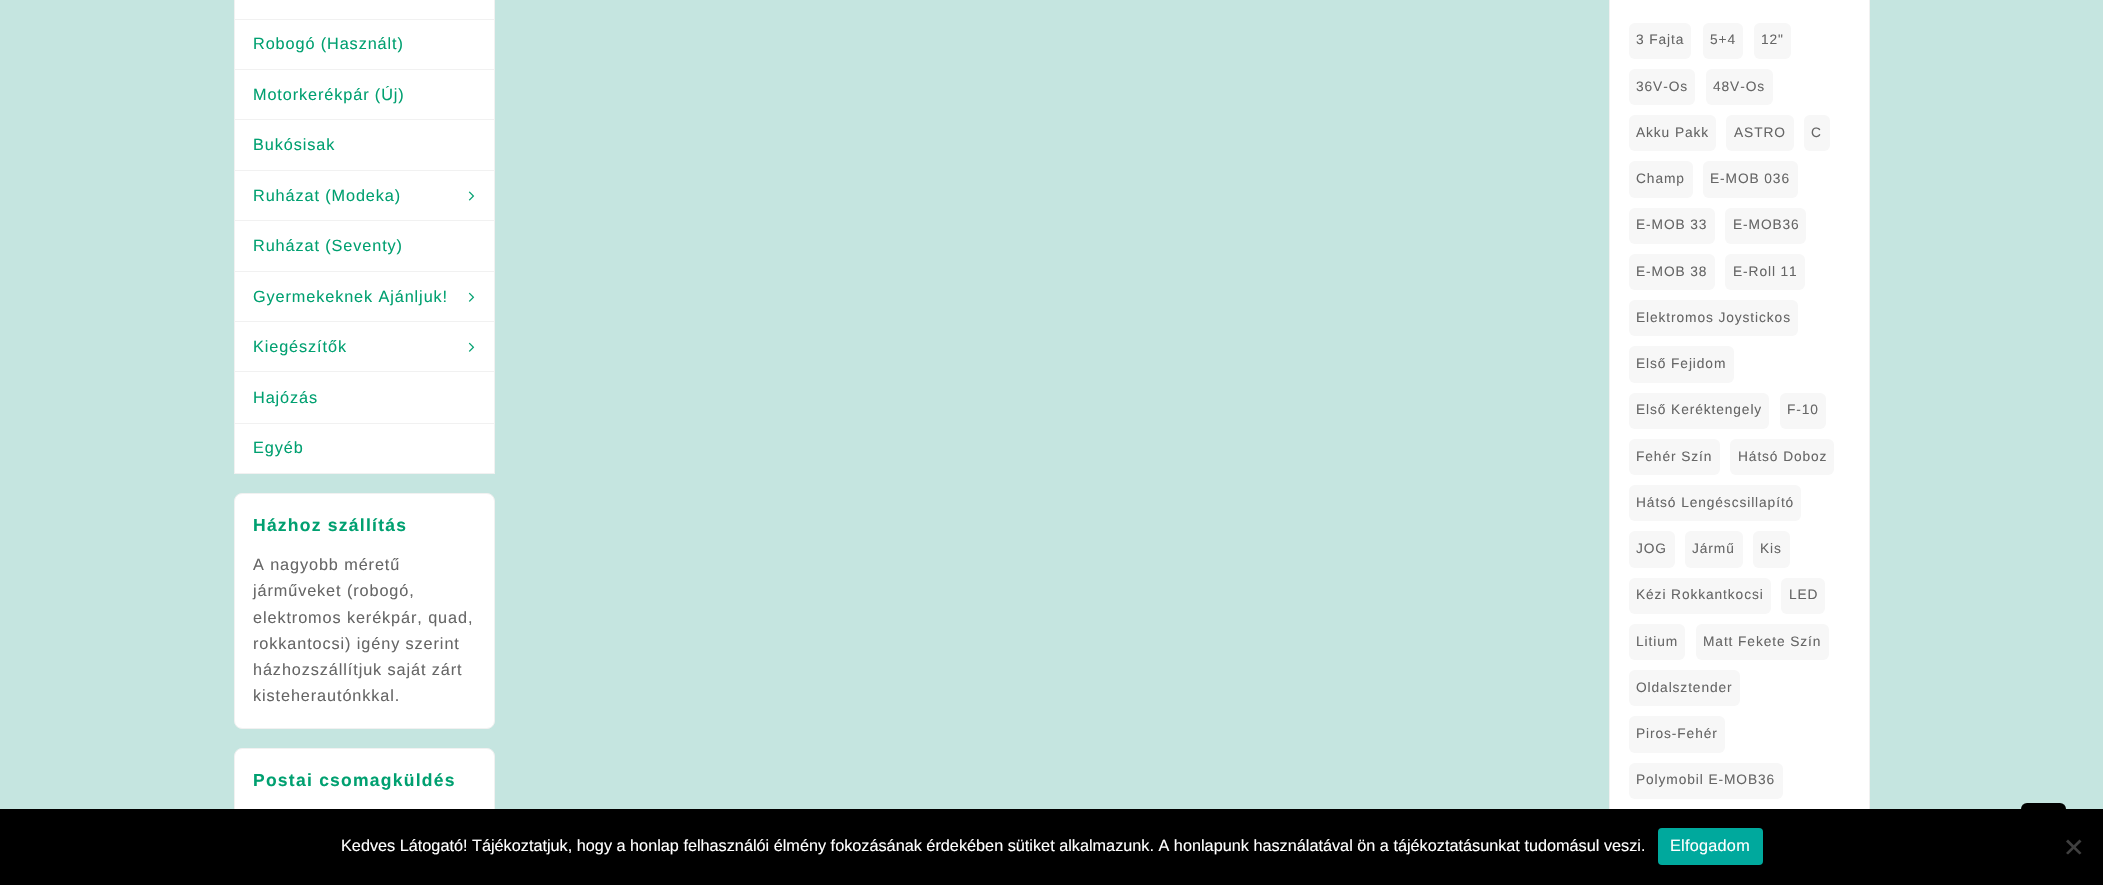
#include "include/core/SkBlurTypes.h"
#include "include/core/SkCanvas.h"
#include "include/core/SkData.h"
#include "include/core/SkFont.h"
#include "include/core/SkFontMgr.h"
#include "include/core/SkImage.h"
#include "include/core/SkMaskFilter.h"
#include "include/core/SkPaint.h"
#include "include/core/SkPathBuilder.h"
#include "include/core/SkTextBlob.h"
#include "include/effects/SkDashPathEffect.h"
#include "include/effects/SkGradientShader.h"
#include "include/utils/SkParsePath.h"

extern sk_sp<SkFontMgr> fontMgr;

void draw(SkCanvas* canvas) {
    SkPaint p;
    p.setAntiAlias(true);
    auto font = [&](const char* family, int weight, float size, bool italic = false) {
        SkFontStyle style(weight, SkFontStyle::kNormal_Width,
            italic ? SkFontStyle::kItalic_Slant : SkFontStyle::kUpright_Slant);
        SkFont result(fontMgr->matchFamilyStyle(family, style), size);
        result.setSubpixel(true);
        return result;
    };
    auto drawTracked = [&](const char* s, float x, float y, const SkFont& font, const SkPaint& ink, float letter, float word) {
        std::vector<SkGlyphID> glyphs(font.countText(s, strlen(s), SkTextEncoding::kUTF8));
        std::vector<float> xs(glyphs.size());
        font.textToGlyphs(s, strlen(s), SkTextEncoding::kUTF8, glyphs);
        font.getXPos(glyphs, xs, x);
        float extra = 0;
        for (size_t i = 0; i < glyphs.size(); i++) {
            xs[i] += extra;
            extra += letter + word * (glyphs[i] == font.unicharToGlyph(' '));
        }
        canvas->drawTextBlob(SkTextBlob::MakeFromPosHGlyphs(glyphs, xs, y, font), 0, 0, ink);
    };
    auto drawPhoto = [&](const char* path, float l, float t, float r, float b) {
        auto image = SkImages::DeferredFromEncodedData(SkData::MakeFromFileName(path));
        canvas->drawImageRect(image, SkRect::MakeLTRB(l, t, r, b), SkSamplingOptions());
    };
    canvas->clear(0xFFC5E5E0);
    {
        const struct { float l, t, r, b; SkColor color; } items[] = {
            {235, 0, 494, 473, 0xFFFFFFFF},
            {494, 0, 495, 474, 0xFFF1F1F1},
            {234, 473, 495, 474, 0xFFF1F1F1},
            {234, 0, 235, 474, 0xFFF1F1F1},
            {235, 19, 494, 20, 0xFFF1F1F1},
            {235, 69, 494, 70, 0xFFF1F1F1},
        };
        for (auto [l, t, r, b, color] : items) {
            p.setColor(color);
            canvas->drawRect(SkRect::MakeLTRB(l, t, r, b), p);
        }
    }
    auto font1 = font("Liberation Sans", 400, 16.25f);
    p.setColor(0xFF00A070);
    drawTracked("Robogó (Használt)", 253, 49, font1, p, 0.9f, 0);
    p.setColor(0xFFF1F1F1);
    canvas->drawRect(SkRect::MakeLTRB(235, 119, 494, 120), p);
    p.setColor(0xFF00A070);
    drawTracked("Motorkerékpár (Új)", 253, 100, font1, p, 0.9f, 0);
    p.setColor(0xFFF1F1F1);
    canvas->drawRect(SkRect::MakeLTRB(235, 170, 494, 171), p);
    p.setColor(0xFF00A070);
    drawTracked("Bukósisak", 253, 150, font1, p, 0.9f, 0);
    p.setColor(0xFFF1F1F1);
    canvas->drawRect(SkRect::MakeLTRB(235, 220, 494, 221), p);
    p.setColor(0xFF00A070);
    drawTracked("Ruházat (Modeka)", 253, 201, font1, p, 0.9f, 0);
    drawPhoto("media/1.png", 468, 191, 475, 201);
    p.setColor(0xFFF1F1F1);
    canvas->drawRect(SkRect::MakeLTRB(235, 271, 494, 272), p);
    p.setColor(0xFF00A070);
    drawTracked("Ruházat (Seventy)", 253, 251, font1, p, 0.9f, 0);
    p.setColor(0xFFF1F1F1);
    canvas->drawRect(SkRect::MakeLTRB(235, 321, 494, 322), p);
    p.setColor(0xFF00A070);
    drawTracked("Gyermekeknek Ajánljuk!", 253, 302, font1, p, 0.9f, 0);
    drawPhoto("media/2.png", 468, 292, 475, 302);
    p.setColor(0xFFF1F1F1);
    canvas->drawRect(SkRect::MakeLTRB(235, 371, 494, 372), p);
    p.setColor(0xFF00A070);
    drawTracked("Kiegészítők", 253, 352, font1, p, 0.9f, 0);
    drawPhoto("media/2.png", 468, 342, 475, 352);
    p.setColor(0xFFF1F1F1);
    canvas->drawRect(SkRect::MakeLTRB(235, 423, 494, 424), p);
    p.setColor(0xFF00A070);
    drawTracked("Hajózás", 253, 403, font1, p, 0.9f, 0);
    drawTracked("Egyéb", 253, 453, font1, p, 0.9f, 0);
    p.setColor(0xFFFFFFFF);
    canvas->drawRoundRect(SkRect::MakeLTRB(234.5f, 493.5f, 494.5f, 728.5f), 7.5f, 7.5f, p);
    p.setStyle(SkPaint::kStroke_Style);
    p.setStrokeWidth(1);
    p.setColor(0xFFF1F1F1);
    canvas->drawRoundRect(SkRect::MakeLTRB(234.5f, 493.5f, 494.5f, 728.5f), 7.5f, 7.5f, p);
    auto font2 = font("Liberation Sans", 700, 17.5f);
    p.setStyle(SkPaint::kFill_Style);
    p.setColor(0xFF00A070);
    drawTracked("Házhoz szállítás", 253, 531, font2, p, 1.25f, 0);
    p.setColor(0xFF666666);
    {
        const struct { const char* s; float x, y; } items[] = {
            {"A nagyobb méretű", 253, 570},
            {"járműveket (robogó,", 253, 596},
            {"elektromos kerékpár, quad,", 253, 623},
            {"rokkantocsi) igény szerint", 253, 649},
            {"házhozszállítjuk saját zárt", 253, 675},
            {"kisteherautónkkal.", 253, 701},
        };
        for (auto [s, x, y] : items) {
            drawTracked(s, x, y, font1, p, 0.9f, 0);
        }
    }
    p.setColor(0xFFFFFFFF);
    canvas->drawRoundRect(SkRect::MakeLTRB(234.5f, 748.5f, 494.5f, 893.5f), 7.5f, 7.5f, p);
    p.setStyle(SkPaint::kStroke_Style);
    p.setColor(0xFFF1F1F1);
    canvas->drawRoundRect(SkRect::MakeLTRB(234.5f, 748.5f, 494.5f, 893.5f), 7.5f, 7.5f, p);
    p.setStyle(SkPaint::kFill_Style);
    p.setColor(0xFF00A070);
    drawTracked("Postai csomagküldés", 253, 786, font2, p, 1.25f, 0);
    p.setColor(0xFFFFFFFF);
    canvas->drawRect(SkRect::MakeLTRB(1610, 0, 1869, 809), p);
    p.setStyle(SkPaint::kStroke_Style);
    p.setColor(0xFFF1F1F1);
    canvas->drawRect(SkRect::MakeLTRB(1609.5f, -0.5f, 1869.5f, 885.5f), p);
    p.setStyle(SkPaint::kFill_Style);
    p.setColor(0xFFF7F7F7);
    canvas->drawRoundRect(SkRect::MakeLTRB(1629, 23, 1691, 59), 6, 6, p);
    auto font3 = font("Liberation Sans", 400, 13.75f);
    p.setColor(0xFF666666);
    drawTracked("3 Fajta", 1636, 44, font3, p, 0.9f, 0);
    p.setColor(0xFFF7F7F7);
    canvas->drawRoundRect(SkRect::MakeLTRB(1703, 23, 1743, 59), 6, 6, p);
    p.setColor(0xFF666666);
    drawTracked("5+4", 1710, 44, font3, p, 0.9f, 0);
    p.setColor(0xFFF7F7F7);
    canvas->drawRoundRect(SkRect::MakeLTRB(1754, 23, 1791, 59), 6, 6, p);
    p.setColor(0xFF666666);
    drawTracked("12\"", 1761, 44, font3, p, 0.9f, 0);
    p.setColor(0xFFF7F7F7);
    canvas->drawRoundRect(SkRect::MakeLTRB(1629, 69, 1695, 105), 6, 6, p);
    p.setColor(0xFF666666);
    drawTracked("36V-Os", 1636, 91, font3, p, 0.9f, 0);
    p.setColor(0xFFF7F7F7);
    canvas->drawRoundRect(SkRect::MakeLTRB(1706, 69, 1773, 105), 6, 6, p);
    p.setColor(0xFF666666);
    drawTracked("48V-Os", 1713, 91, font3, p, 0.9f, 0);
    p.setColor(0xFFF7F7F7);
    canvas->drawRoundRect(SkRect::MakeLTRB(1629, 115, 1716, 151), 6, 6, p);
    p.setColor(0xFF666666);
    drawTracked("Akku Pakk", 1636, 137, font3, p, 0.9f, 0);
    p.setColor(0xFFF7F7F7);
    canvas->drawRoundRect(SkRect::MakeLTRB(1726, 115, 1794, 151), 6, 6, p);
    p.setColor(0xFF666666);
    drawTracked("ASTRO", 1734, 137, font3, p, 0.9f, 0);
    p.setColor(0xFFF7F7F7);
    canvas->drawRoundRect(SkRect::MakeLTRB(1804, 115, 1830, 151), 6, 6, p);
    p.setColor(0xFF666666);
    drawTracked("C", 1811, 137, font3, p, 0.9f, 0);
    p.setColor(0xFFF7F7F7);
    canvas->drawRoundRect(SkRect::MakeLTRB(1629, 161, 1693, 198), 6, 6, p);
    p.setColor(0xFF666666);
    drawTracked("Champ", 1636, 183, font3, p, 0.9f, 0);
    p.setColor(0xFFF7F7F7);
    canvas->drawRoundRect(SkRect::MakeLTRB(1703, 161, 1798, 198), 6, 6, p);
    p.setColor(0xFF666666);
    drawTracked("E-MOB 036", 1710, 183, font3, p, 0.9f, 0);
    p.setColor(0xFFF7F7F7);
    canvas->drawRoundRect(SkRect::MakeLTRB(1629, 208, 1715, 244), 6, 6, p);
    p.setColor(0xFF666666);
    drawTracked("E-MOB 33", 1636, 229, font3, p, 0.9f, 0);
    p.setColor(0xFFF7F7F7);
    canvas->drawRoundRect(SkRect::MakeLTRB(1725, 208, 1806, 244), 6, 6, p);
    p.setColor(0xFF666666);
    drawTracked("E-MOB36", 1733, 229, font3, p, 0.9f, 0);
    p.setColor(0xFFF7F7F7);
    canvas->drawRoundRect(SkRect::MakeLTRB(1629, 254, 1715, 290), 6, 6, p);
    p.setColor(0xFF666666);
    drawTracked("E-MOB 38", 1636, 276, font3, p, 0.9f, 0);
    p.setColor(0xFFF7F7F7);
    canvas->drawRoundRect(SkRect::MakeLTRB(1725, 254, 1805, 290), 6, 6, p);
    p.setColor(0xFF666666);
    drawTracked("E-Roll 11", 1733, 276, font3, p, 0.9f, 0);
    p.setColor(0xFFF7F7F7);
    canvas->drawRoundRect(SkRect::MakeLTRB(1629, 300, 1798, 336), 6, 6, p);
    p.setColor(0xFF666666);
    drawTracked("Elektromos Joystickos", 1636, 322, font3, p, 0.9f, 0);
    p.setColor(0xFFF7F7F7);
    canvas->drawRoundRect(SkRect::MakeLTRB(1629, 346, 1734, 383), 6, 6, p);
    p.setColor(0xFF666666);
    drawTracked("Első Fejidom", 1636, 368, font3, p, 0.9f, 0);
    p.setColor(0xFFF7F7F7);
    canvas->drawRoundRect(SkRect::MakeLTRB(1629, 393, 1769, 429), 6, 6, p);
    p.setColor(0xFF666666);
    drawTracked("Első Keréktengely", 1636, 414, font3, p, 0.9f, 0);
    p.setColor(0xFFF7F7F7);
    canvas->drawRoundRect(SkRect::MakeLTRB(1780, 393, 1826, 429), 6, 6, p);
    p.setColor(0xFF666666);
    drawTracked("F-10", 1787, 414, font3, p, 0.9f, 0);
    p.setColor(0xFFF7F7F7);
    canvas->drawRoundRect(SkRect::MakeLTRB(1629, 439, 1720, 475), 6, 6, p);
    p.setColor(0xFF666666);
    drawTracked("Fehér Szín", 1636, 461, font3, p, 0.9f, 0);
    p.setColor(0xFFF7F7F7);
    canvas->drawRoundRect(SkRect::MakeLTRB(1730, 439, 1834, 475), 6, 6, p);
    p.setColor(0xFF666666);
    drawTracked("Hátsó Doboz", 1738, 461, font3, p, 0.9f, 0);
    p.setColor(0xFFF7F7F7);
    canvas->drawRoundRect(SkRect::MakeLTRB(1629, 485, 1801, 521), 6, 6, p);
    p.setColor(0xFF666666);
    drawTracked("Hátsó Lengéscsillapító", 1636, 507, font3, p, 0.9f, 0);
    p.setColor(0xFFF7F7F7);
    canvas->drawRoundRect(SkRect::MakeLTRB(1629, 531, 1675, 568), 6, 6, p);
    p.setColor(0xFF666666);
    drawTracked("JOG", 1636, 553, font3, p, 0.9f, 0);
    p.setColor(0xFFF7F7F7);
    canvas->drawRoundRect(SkRect::MakeLTRB(1685, 531, 1743, 568), 6, 6, p);
    p.setColor(0xFF666666);
    drawTracked("Jármű", 1692, 553, font3, p, 0.9f, 0);
    p.setColor(0xFFF7F7F7);
    canvas->drawRoundRect(SkRect::MakeLTRB(1753, 531, 1790, 568), 6, 6, p);
    p.setColor(0xFF666666);
    drawTracked("Kis", 1760, 553, font3, p, 0.9f, 0);
    p.setColor(0xFFF7F7F7);
    canvas->drawRoundRect(SkRect::MakeLTRB(1629, 578, 1771, 614), 6, 6, p);
    p.setColor(0xFF666666);
    drawTracked("Kézi Rokkantkocsi", 1636, 599, font3, p, 0.9f, 0);
    p.setColor(0xFFF7F7F7);
    canvas->drawRoundRect(SkRect::MakeLTRB(1781, 578, 1825, 614), 6, 6, p);
    p.setColor(0xFF666666);
    drawTracked("LED", 1789, 599, font3, p, 0.9f, 0);
    p.setColor(0xFFF7F7F7);
    canvas->drawRoundRect(SkRect::MakeLTRB(1629, 624, 1685, 660), 6, 6, p);
    p.setColor(0xFF666666);
    drawTracked("Litium", 1636, 646, font3, p, 0.9f, 0);
    p.setColor(0xFFF7F7F7);
    canvas->drawRoundRect(SkRect::MakeLTRB(1696, 624, 1829, 660), 6, 6, p);
    p.setColor(0xFF666666);
    drawTracked("Matt Fekete Szín", 1703, 646, font3, p, 0.9f, 0);
    p.setColor(0xFFF7F7F7);
    canvas->drawRoundRect(SkRect::MakeLTRB(1629, 670, 1740, 706), 6, 6, p);
    p.setColor(0xFF666666);
    drawTracked("Oldalsztender", 1636, 692, font3, p, 0.9f, 0);
    p.setColor(0xFFF7F7F7);
    canvas->drawRoundRect(SkRect::MakeLTRB(1629, 716, 1725, 753), 6, 6, p);
    p.setColor(0xFF666666);
    drawTracked("Piros-Fehér", 1636, 738, font3, p, 0.9f, 0);
    p.setColor(0xFFF7F7F7);
    canvas->drawRoundRect(SkRect::MakeLTRB(1629, 763, 1783, 799), 6, 6, p);
    p.setColor(0xFF666666);
    drawTracked("Polymobil E-MOB36", 1636, 784, font3, p, 0.9f, 0);
    p.setColor(0xFF000000);
    canvas->drawRoundRect(SkRect::MakeLTRB(2021, 803, 2066, 848), 6, 6, p);
    canvas->drawRect(SkRect::MakeLTRB(0, 809, 2103, 885), p);
    p.setColor(0xFFFFFFFF);
    canvas->drawString("Kedves Látogató! Tájékoztatjuk, hogy a honlap felhasználói élmény fokozásának érdekében sütiket alkalmazunk. A honlapunk használatával ön a tájékoztatásunkat tudomásul veszi.", 341, 851, font1, p);
    p.setColor(0xFF00A99D);
    canvas->drawRoundRect(SkRect::MakeLTRB(1658, 828, 1763, 865), 4, 4, p);
    p.setColor(0xFFFFFFFF);
    drawTracked("Elfogadom", 1670, 851, font1, p, 0.25f, 0);
    p.setColor(0xFF404040);
    canvas->drawPath(SkPathBuilder().moveTo(2079.5f, 839.5f).lineTo(2081.5f, 841.5f).lineTo(2068, 854.5f).lineTo(2066, 853).close().detach(), p);
    canvas->drawPath(SkPathBuilder().moveTo(2066, 841.5f).lineTo(2068, 839.5f).lineTo(2081.5f, 853).lineTo(2079.5f, 854.5f).close().detach(), p);
}
